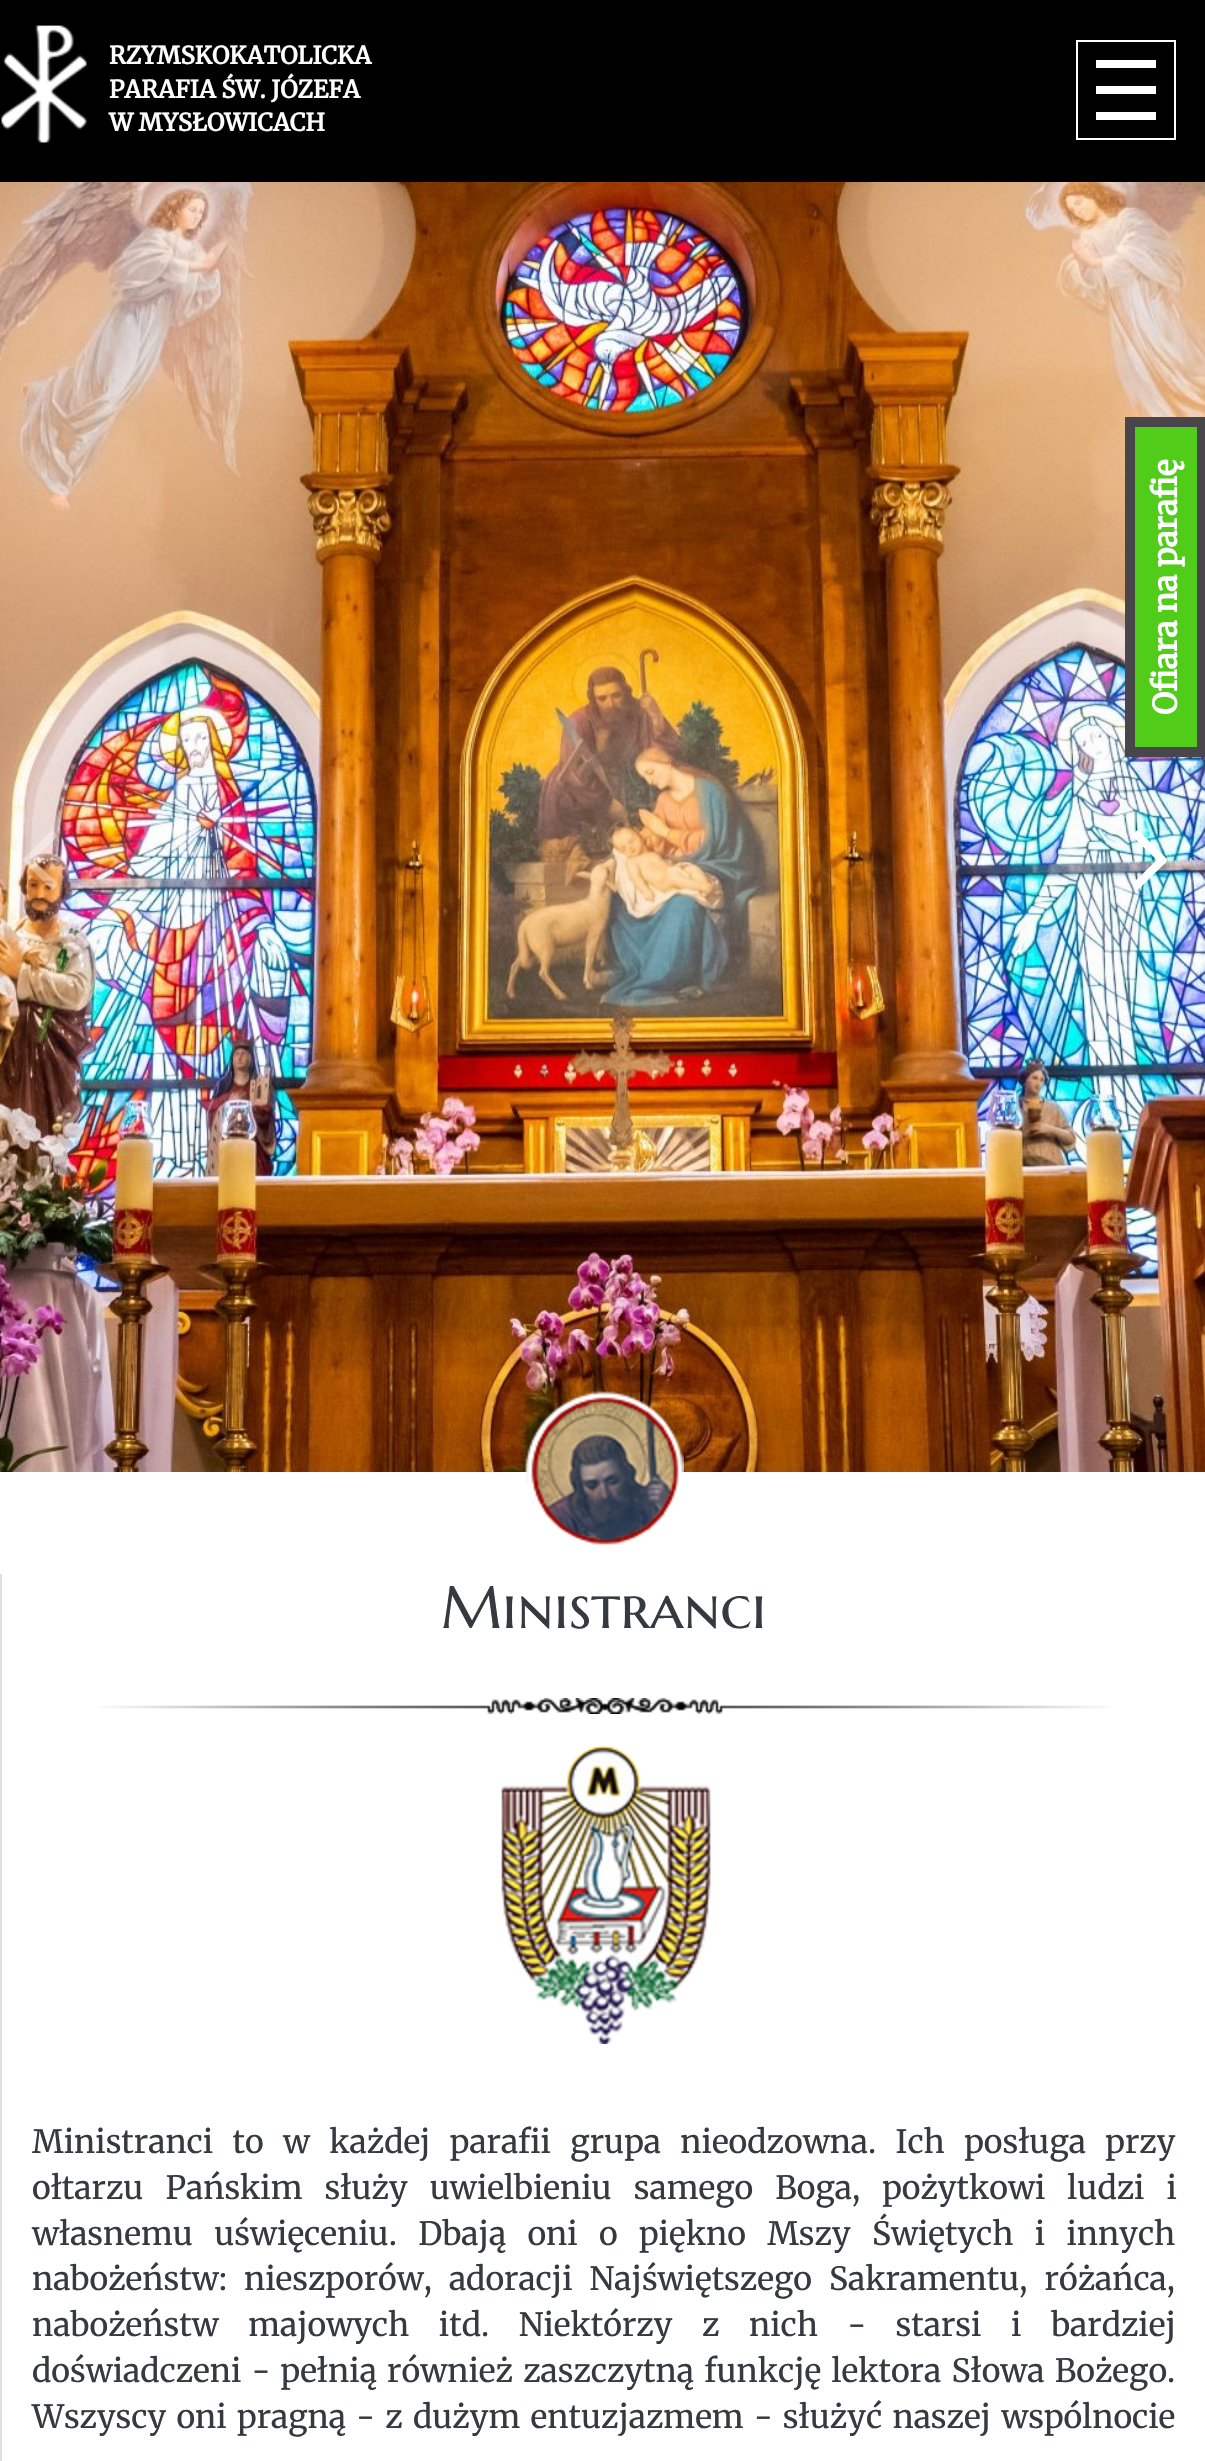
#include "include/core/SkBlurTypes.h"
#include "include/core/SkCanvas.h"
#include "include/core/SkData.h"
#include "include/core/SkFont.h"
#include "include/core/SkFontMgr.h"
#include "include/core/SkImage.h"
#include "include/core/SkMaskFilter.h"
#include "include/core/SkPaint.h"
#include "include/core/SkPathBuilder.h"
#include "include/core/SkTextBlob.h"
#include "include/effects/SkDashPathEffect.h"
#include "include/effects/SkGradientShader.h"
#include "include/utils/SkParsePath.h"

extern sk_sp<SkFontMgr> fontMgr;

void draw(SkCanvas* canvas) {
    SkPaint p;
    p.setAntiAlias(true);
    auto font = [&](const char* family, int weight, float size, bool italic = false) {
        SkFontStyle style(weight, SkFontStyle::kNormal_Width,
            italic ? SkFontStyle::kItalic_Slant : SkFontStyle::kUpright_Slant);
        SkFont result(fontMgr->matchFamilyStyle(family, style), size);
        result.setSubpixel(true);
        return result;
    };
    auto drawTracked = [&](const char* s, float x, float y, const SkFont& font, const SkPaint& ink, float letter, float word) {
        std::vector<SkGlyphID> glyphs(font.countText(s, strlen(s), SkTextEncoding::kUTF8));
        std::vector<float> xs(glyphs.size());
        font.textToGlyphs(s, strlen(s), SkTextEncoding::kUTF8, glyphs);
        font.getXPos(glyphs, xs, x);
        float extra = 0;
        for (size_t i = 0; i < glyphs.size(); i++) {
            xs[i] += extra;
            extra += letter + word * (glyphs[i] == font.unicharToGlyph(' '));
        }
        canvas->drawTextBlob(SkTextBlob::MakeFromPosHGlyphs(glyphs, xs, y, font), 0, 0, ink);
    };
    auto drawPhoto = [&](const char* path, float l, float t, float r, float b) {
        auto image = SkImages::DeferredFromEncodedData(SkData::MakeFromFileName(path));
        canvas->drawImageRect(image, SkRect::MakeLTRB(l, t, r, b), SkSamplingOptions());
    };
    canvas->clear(0xFFFFFFFF);
    p.setColor(0xFF000000);
    canvas->drawRect(SkRect::MakeLTRB(0, 0, 1205, 182), p);
    drawPhoto("media/1.png", 1, 25, 87, 143);
    auto font1 = font("Merriweather", 700, 24);
    p.setColor(0xFFFFFFFF);
    {
        const struct { const char* s; float x, y; } items[] = {
            {"RZYMSKOKATOLICKA", 109, 64},
            {"PARAFIA ŚW. JÓZEFA", 109, 98},
            {"W MYSŁOWICACH", 109, 131},
        };
        for (auto [s, x, y] : items) {
            canvas->drawString(s, x, y, font1, p);
        }
    }
    p.setStyle(SkPaint::kStroke_Style);
    p.setStrokeWidth(2);
    canvas->drawRect(SkRect::MakeLTRB(1077, 41, 1175, 139), p);
    p.setStyle(SkPaint::kFill_Style);
    {
        const struct { float l, t, r, b; SkColor color; } items[] = {
            {1096, 60, 1156, 68, 0xFFFFFFFF},
            {1096, 86, 1156, 94, 0xFFFFFFFF},
            {1096, 112, 1156, 120, 0xFFFFFFFF},
        };
        for (auto [l, t, r, b, color] : items) {
            p.setColor(color);
            canvas->drawRect(SkRect::MakeLTRB(l, t, r, b), p);
        }
    }
    drawPhoto("media/2.png", 0, 182, 1205, 1472);
    p.setColor(0x59FFFFFF);
    canvas->drawPath(SkPathBuilder().moveTo(56, 834).cubicTo(59, 836, 53, 840, 53, 841).lineTo(33, 860).lineTo(53, 879).cubicTo(57, 883, 59, 884, 55, 887).cubicTo(54, 888, 52, 890, 51, 889).lineTo(28, 866).cubicTo(21, 859, 21, 861, 28, 854).lineTo(51, 831).cubicTo(53, 829, 55, 833, 56, 834).close().detach(), p);
    p.setColor(0xFFFFFFFF);
    canvas->drawPath(SkPathBuilder().moveTo(1167, 859).cubicTo(1169, 861, 1162, 866, 1162, 866).lineTo(1144, 884).cubicTo(1143, 884, 1139, 891, 1136, 889).cubicTo(1135, 888, 1131, 885, 1133, 883).lineTo(1157, 860).lineTo(1137, 841).cubicTo(1133, 836, 1131, 836, 1135, 832).cubicTo(1139, 828, 1139, 831, 1144, 836).close().detach(), p);
    drawPhoto("media/3.png", 525, 1391, 684, 1545);
    p.setColor(0xFF50CC19);
    canvas->drawRect(SkRect::MakeLTRB(1135, 427, 1197, 747), p);
    p.setStyle(SkPaint::kStroke_Style);
    p.setStrokeWidth(10);
    p.setColor(0xFF48464B);
    canvas->drawPath(SkPathBuilder().moveTo(1130, 752).lineTo(1130, 422).lineTo(1202, 422).lineTo(1202, 752).close().detach(), p);
    auto font2 = font("Merriweather", 700, 32);
    p.setStyle(SkPaint::kFill_Style);
    p.setColor(0xFFFFFFFF);
    canvas->save();
    canvas->rotate(-90, 1177, 715);
    canvas->drawString("Ofiara na parafię", 1177, 715, font2, p);
    canvas->restore();
    p.setColor(0xFFE1E1E1);
    canvas->drawRect(SkRect::MakeLTRB(0, 1574, 2, 2461), p);
    auto font3 = font("Marcellus SC", 400, 60);
    p.setColor(0xFF353A40);
    canvas->drawString("Ministranci", 441, 1628, font3, p);
    drawPhoto("media/4.png", 100, 1698, 1110, 1714);
    drawPhoto("media/5.png", 500, 1745, 711, 2044);
    auto font4 = font("Merriweather", 300, 32);
    drawTracked("Ministranci to w każdej parafii grupa nieodzowna. Ich posługa przy", 32, 2153, font4, p, 0, 11.75f);
    drawTracked("ołtarzu Pańskim służy uwielbieniu samego Boga, pożytkowi ludzi i", 32, 2199, font4, p, 0, 14.5f);
    drawTracked("własnemu uświęceniu. Dbają oni o piękno Mszy Świętych i innych", 32, 2245, font4, p, 0, 13.75f);
    drawTracked("nabożeństw: nieszporów, adoracji Najświętszego Sakramentu, różańca,", 32, 2290, font4, p, 0, 9.5f);
    drawTracked("nabożeństw majowych itd. Niektórzy z nich - starsi i bardziej", 32, 2336, font4, p, 0, 22);
    drawTracked("doświadczeni - pełnią również zaszczytną funkcję lektora Słowa Bożego.", 32, 2382, font4, p, 0, 2.75f);
    drawTracked("Wszyscy oni pragną - z dużym entuzjazmem - służyć naszej wspólnocie", 32, 2428, font4, p, 0, 2.75f);
}
